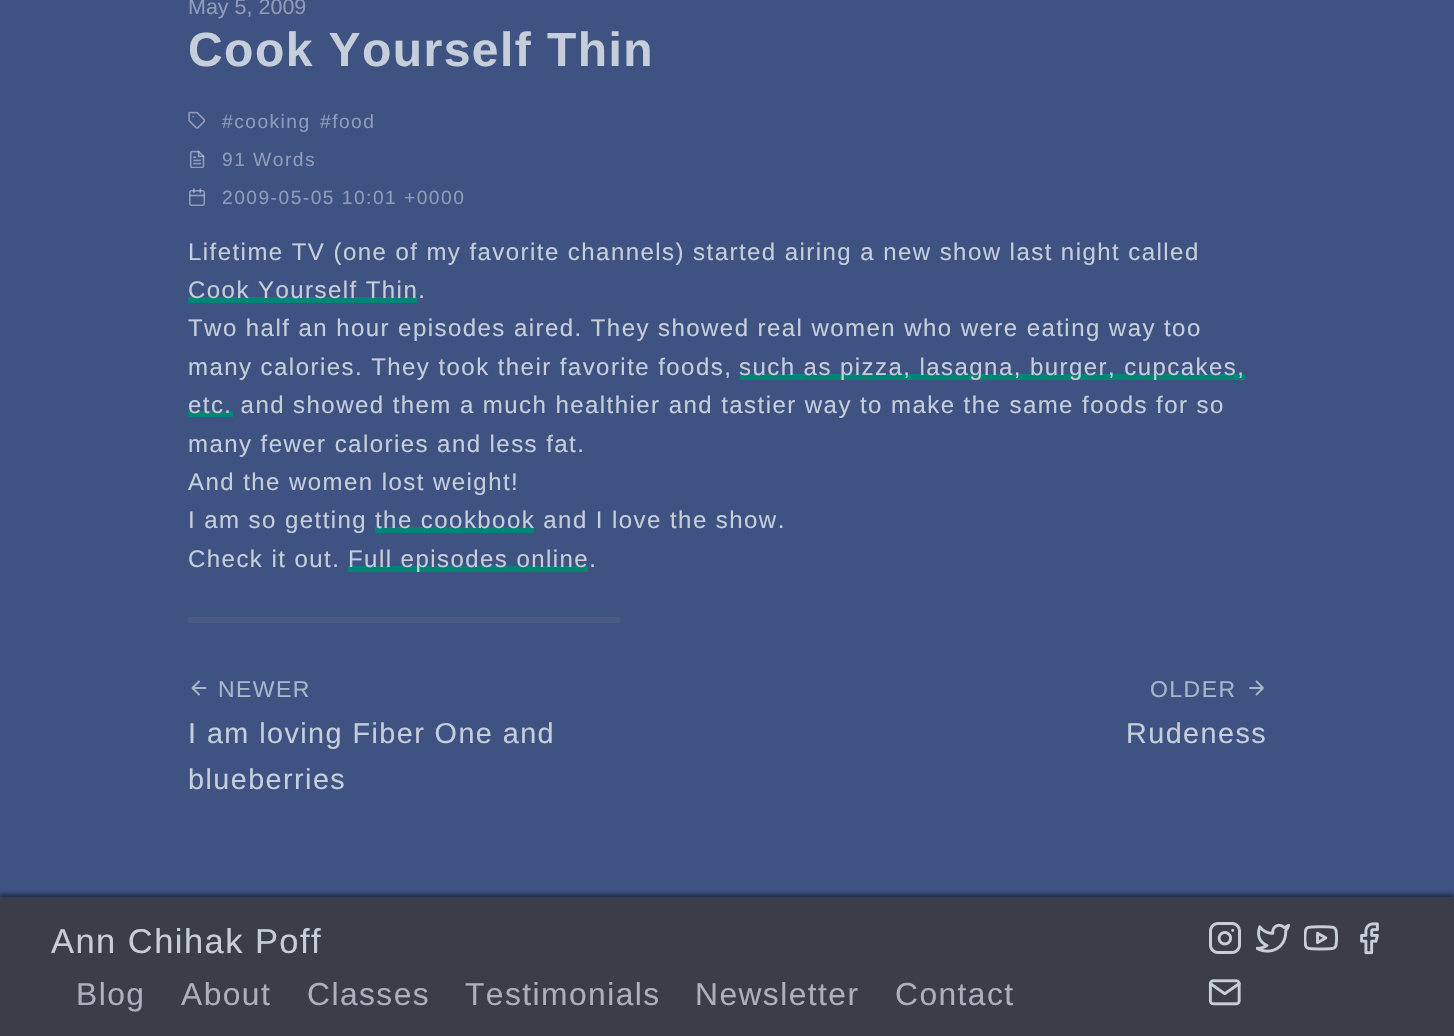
#include "include/core/SkBlurTypes.h"
#include "include/core/SkCanvas.h"
#include "include/core/SkData.h"
#include "include/core/SkFont.h"
#include "include/core/SkFontMgr.h"
#include "include/core/SkImage.h"
#include "include/core/SkMaskFilter.h"
#include "include/core/SkPaint.h"
#include "include/core/SkPathBuilder.h"
#include "include/core/SkTextBlob.h"
#include "include/effects/SkDashPathEffect.h"
#include "include/effects/SkGradientShader.h"
#include "include/utils/SkParsePath.h"

extern sk_sp<SkFontMgr> fontMgr;

void draw(SkCanvas* canvas) {
    SkPaint p;
    p.setAntiAlias(true);
    auto font = [&](const char* family, int weight, float size, bool italic = false) {
        SkFontStyle style(weight, SkFontStyle::kNormal_Width,
            italic ? SkFontStyle::kItalic_Slant : SkFontStyle::kUpright_Slant);
        SkFont result(fontMgr->matchFamilyStyle(family, style), size);
        result.setSubpixel(true);
        return result;
    };
    auto drawTracked = [&](const char* s, float x, float y, const SkFont& font, const SkPaint& ink, float letter, float word) {
        std::vector<SkGlyphID> glyphs(font.countText(s, strlen(s), SkTextEncoding::kUTF8));
        std::vector<float> xs(glyphs.size());
        font.textToGlyphs(s, strlen(s), SkTextEncoding::kUTF8, glyphs);
        font.getXPos(glyphs, xs, x);
        float extra = 0;
        for (size_t i = 0; i < glyphs.size(); i++) {
            xs[i] += extra;
            extra += letter + word * (glyphs[i] == font.unicharToGlyph(' '));
        }
        canvas->drawTextBlob(SkTextBlob::MakeFromPosHGlyphs(glyphs, xs, y, font), 0, 0, ink);
    };
    auto drawPhoto = [&](const char* path, float l, float t, float r, float b) {
        auto image = SkImages::DeferredFromEncodedData(SkData::MakeFromFileName(path));
        canvas->drawImageRect(image, SkRect::MakeLTRB(l, t, r, b), SkSamplingOptions());
    };
    canvas->clear(0xFF3E5382);
    auto font1 = font("Liberation Sans", 400, 21.5f);
    p.setColor(0xFF909CB7);
    canvas->drawString("May 5, 2009", 188, 14, font1, p);
    auto font2 = font("Liberation Sans", 700, 48);
    p.setColor(0xFFC6CDDB);
    drawTracked("Cook Yourself Thin", 188, 66, font2, p, 1.45f, 0);
    drawPhoto("media/1.png", 188, 111, 206, 129);
    auto font3 = font("Liberation Sans", 400, 19.25f);
    p.setColor(0xFF909CB7);
    drawTracked("#cooking", 222, 128, font3, p, 1.45f, 0);
    drawTracked("#food", 320, 128, font3, p, 1.45f, 0);
    drawPhoto("media/2.png", 189, 150, 205, 168);
    drawTracked("91 Words", 222, 166, font3, p, 1.45f, 0);
    drawPhoto("media/3.png", 189, 188, 205, 206);
    drawTracked("2009-05-05 10:01 +0000", 222, 204, font3, p, 1.45f, 0);
    auto font4 = font("Liberation Sans", 400, 24);
    p.setColor(0xFFC6CDDB);
    drawTracked("Lifetime TV (one of my favorite channels) started airing a new show last night called", 188, 260, font4, p, 1.45f, 0);
    p.setColor(0xFF018574);
    canvas->drawRect(SkRect::MakeLTRB(188, 297, 417, 303), p);
    p.setColor(0xFFC6CDDB);
    {
        const struct { const char* s; float x, y; } items[] = {
            {"Cook Yourself Thin.", 188, 298},
            {"Two half an hour episodes aired. They showed real women who were eating way too", 188, 336},
            {"many calories. They took their favorite foods,", 188, 375},
        };
        for (auto [s, x, y] : items) {
            drawTracked(s, x, y, font4, p, 1.45f, 0);
        }
    }
    p.setColor(0xFF018574);
    canvas->drawRect(SkRect::MakeLTRB(740, 374, 1245, 380), p);
    p.setColor(0xFFC6CDDB);
    drawTracked("such as pizza, lasagna, burger, cupcakes,", 739, 375, font4, p, 1.45f, 0);
    p.setColor(0xFF018574);
    canvas->drawRect(SkRect::MakeLTRB(188, 411, 233, 417), p);
    p.setColor(0xFFC6CDDB);
    {
        const struct { const char* s; float x, y; } items[] = {
            {"etc. and showed them a much healthier and tastier way to make the same foods for so", 188, 413},
            {"many fewer calories and less fat.", 188, 452},
            {"And the women lost weight!", 188, 490},
            {"I am so getting", 188, 528},
        };
        for (auto [s, x, y] : items) {
            drawTracked(s, x, y, font4, p, 1.45f, 0);
        }
    }
    p.setColor(0xFF018574);
    canvas->drawRect(SkRect::MakeLTRB(375, 527, 534, 533), p);
    p.setColor(0xFFC6CDDB);
    drawTracked("the cookbook and I love the show.", 375, 528, font4, p, 1.45f, 0);
    drawTracked("Check it out.", 188, 567, font4, p, 1.45f, 0);
    p.setColor(0xFF018574);
    canvas->drawRect(SkRect::MakeLTRB(348, 566, 588, 572), p);
    p.setColor(0xFFC6CDDB);
    drawTracked("Full episodes online.", 348, 567, font4, p, 1.45f, 0);
    p.setColor(0xFF4B5C82);
    canvas->drawRect(SkRect::MakeLTRB(188, 617, 620, 623), p);
    p.setStyle(SkPaint::kStroke_Style);
    p.setStrokeWidth(1.9f);
    p.setStrokeCap(SkPaint::kRound_Cap);
    p.setStrokeJoin(SkPaint::kRound_Join);
    p.setColor(0xFFABB5C9);
    canvas->drawPath(SkPathBuilder().moveTo(205.5f, 688).lineTo(192.5f, 688).moveTo(199, 694.5f).lineTo(192.5f, 688).lineTo(199, 681.5f).detach(), p);
    auto font5 = font("Liberation Sans", 400, 23);
    p.setStyle(SkPaint::kFill_Style);
    drawTracked("NEWER", 218, 697, font5, p, 1.45f, 0);
    auto font6 = font("Liberation Sans", 400, 28.75f);
    p.setColor(0xFFC6CDDB);
    drawTracked("I am loving Fiber One and", 188, 743, font6, p, 1.45f, 0);
    drawTracked("blueberries", 188, 789, font6, p, 1.45f, 0);
    p.setColor(0xFFABB5C9);
    drawTracked("OLDER", 1150, 697, font5, p, 1.45f, 0);
    p.setStyle(SkPaint::kStroke_Style);
    canvas->drawPath(SkPathBuilder().moveTo(1250, 688).lineTo(1263, 688).moveTo(1256.5f, 681.5f).lineTo(1263, 688).lineTo(1256.5f, 694.5f).detach(), p);
    p.setStyle(SkPaint::kFill_Style);
    p.setColor(0xFFC6CDDB);
    drawTracked("Rudeness", 1126, 743, font6, p, 1.45f, 0);
    p.setColor(0x73000000);
    p.setMaskFilter(SkMaskFilter::MakeBlur(kNormal_SkBlurStyle, 2));
    canvas->drawRect(SkRect::MakeLTRB(-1, 894, 1454, 1034), p);
    p.setMaskFilter(nullptr);
    p.setColor(0xFF3B3E48);
    canvas->drawRect(SkRect::MakeLTRB(0, 897, 1454, 1036), p);
    auto font7 = font("Liberation Sans", 400, 34.5f);
    p.setColor(0xFFC6CDDB);
    drawTracked("Ann Chihak Poff", 51, 953, font7, p, 1.45f, 0);
    auto font8 = font("Liberation Sans", 400, 31.75f);
    p.setColor(0xFFAAB0BE);
    {
        const struct { const char* s; float x, y; } items[] = {
            {"Blog", 76, 1005},
            {"About", 181, 1005},
            {"Classes", 307, 1005},
            {"Testimonials", 465, 1005},
            {"Newsletter", 695, 1005},
            {"Contact", 895, 1005},
        };
        for (auto [s, x, y] : items) {
            drawTracked(s, x, y, font8, p, 1.45f, 0);
        }
    }
    drawPhoto("media/4.png", 1209, 922, 1241, 954);
    drawPhoto("media/5.png", 1256, 923, 1290, 953);
    drawPhoto("media/6.png", 1304, 925, 1338, 951);
    drawPhoto("media/7.png", 1360, 922, 1379, 955);
    drawPhoto("media/8.png", 1208, 979, 1241, 1006);
}
